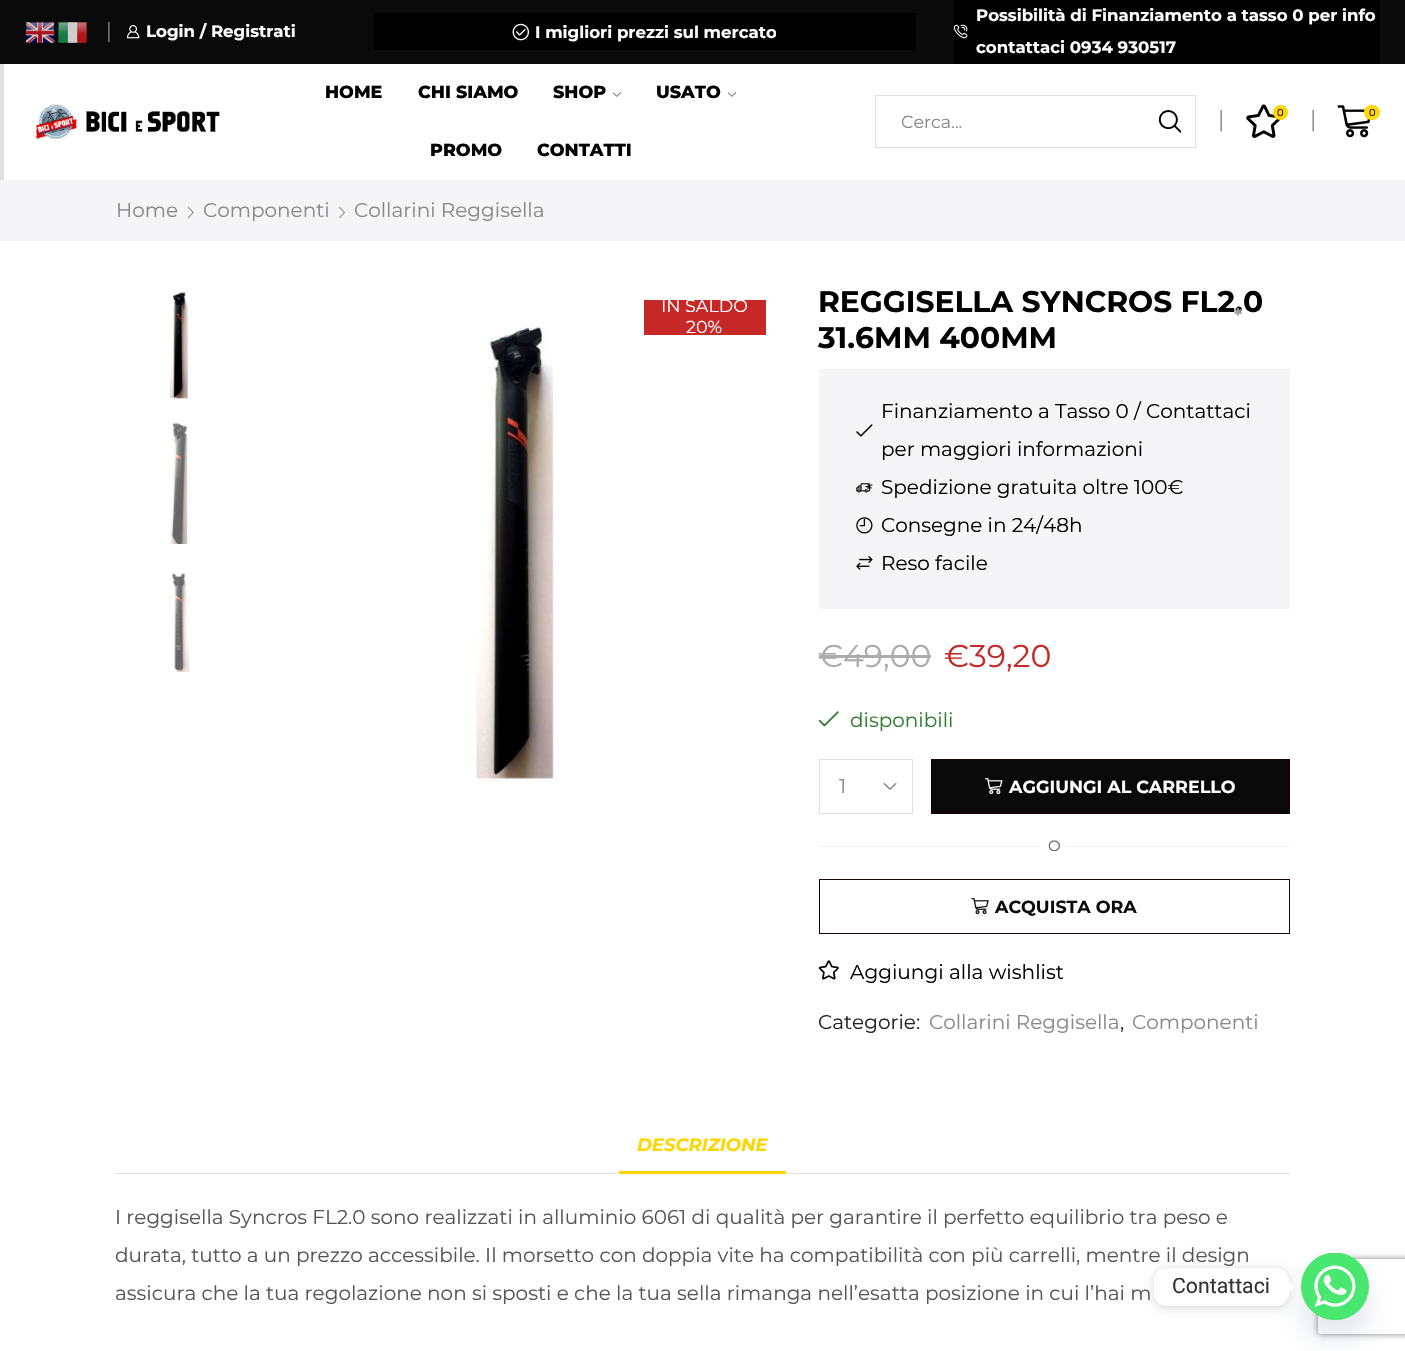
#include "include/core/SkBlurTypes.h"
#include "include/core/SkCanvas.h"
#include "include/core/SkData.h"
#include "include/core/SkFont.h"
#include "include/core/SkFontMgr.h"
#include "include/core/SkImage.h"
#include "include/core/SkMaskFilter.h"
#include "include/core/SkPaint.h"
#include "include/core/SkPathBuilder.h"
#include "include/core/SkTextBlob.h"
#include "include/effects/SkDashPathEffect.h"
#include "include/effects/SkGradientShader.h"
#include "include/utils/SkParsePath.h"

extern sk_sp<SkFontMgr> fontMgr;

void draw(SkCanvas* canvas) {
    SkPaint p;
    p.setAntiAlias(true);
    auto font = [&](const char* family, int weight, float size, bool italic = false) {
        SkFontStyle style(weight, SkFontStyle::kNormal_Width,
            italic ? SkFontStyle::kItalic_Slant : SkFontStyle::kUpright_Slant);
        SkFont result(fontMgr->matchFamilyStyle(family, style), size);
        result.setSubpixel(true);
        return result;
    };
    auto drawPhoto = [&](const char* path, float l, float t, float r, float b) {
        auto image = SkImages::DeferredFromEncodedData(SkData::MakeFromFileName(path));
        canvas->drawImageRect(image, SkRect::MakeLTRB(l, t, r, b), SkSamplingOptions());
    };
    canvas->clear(0xFFFFFFFF);
    p.setColor(0xFF0A0A0A);
    canvas->drawRect(SkRect::MakeLTRB(0, 0, 1405, 64), p);
    p.setColor(0xFF000000);
    canvas->drawRect(SkRect::MakeLTRB(954, 0, 1380, 64), p);
    drawPhoto("media/1.png", 953, 24, 968, 39);
    auto font1 = font("Montserrat", 700, 16.6f);
    p.setColor(0xFFFFFFFF);
    canvas->drawString("Possibilità di Finanziamento a tasso 0 per info", 976, 21, font1, p);
    canvas->drawString("contattaci 0934 930517", 976, 53, font1, p);
    drawPhoto("media/2.png", 26, 22, 55, 43);
    drawPhoto("media/3.png", 58, 22, 87, 43);
    auto font2 = font("Liberation Serif", 700, 16.6f);
    p.setColor(0xFF888888);
    canvas->drawString("│", 103, 37, font2, p);
    drawPhoto("media/4.png", 126, 25, 140, 39);
    p.setColor(0xFFFFFFFF);
    canvas->drawString("Login / Registrati", 146, 37, font1, p);
    auto font3 = font("Montserrat", 700, 29.75f);
    p.setColor(0xFF000000);
    canvas->drawString("REGGISELLA SYNCROS FL2.0", 818, 312, font3, p);
    auto font4 = font("Montserrat", 700, 19);
    p.setColor(0xFF9B9B9B);
    canvas->drawString("*", 1234, 322, font4, p);
    p.setColor(0xFF000000);
    canvas->drawRect(SkRect::MakeLTRB(374, 13, 916, 50), p);
    drawPhoto("media/5.png", 512, 23, 530, 41);
    canvas->save();
    canvas->clipRect(SkRect::MakeLTRB(529, 13, 776, 50));
    p.setColor(0xFFFFFFFF);
    canvas->drawString("I migliori prezzi sul mercato", 535, 38, font1, p);
    canvas->restore();
    p.setColor(0xFFE1E1E1);
    canvas->drawRect(SkRect::MakeLTRB(0, 64, 4, 180), p);
    drawPhoto("media/6.png", 36, 104, 220, 140);
    auto font5 = font("Montserrat", 800, 17.5f);
    p.setColor(0xFF000000);
    {
        const struct { const char* s; float x, y; } items[] = {
            {"HOME", 325, 98},
            {"CHI SIAMO", 418, 98},
            {"SHOP", 553, 98},
        };
        for (auto [s, x, y] : items) {
            canvas->drawString(s, x, y, font5, p);
        }
    }
    drawPhoto("media/7.png", 613, 92, 621, 97);
    canvas->drawString("USATO", 656, 98, font5, p);
    drawPhoto("media/7.png", 728, 92, 736, 97);
    canvas->drawString("PROMO", 430, 156, font5, p);
    canvas->drawString("CONTATTI", 537, 156, font5, p);
    p.setStyle(SkPaint::kStroke_Style);
    p.setStrokeWidth(1);
    p.setColor(0xFFE1E1E1);
    canvas->drawRect(SkRect::MakeLTRB(875.5f, 95.5f, 1195.5f, 147.5f), p);
    auto font6 = font("Montserrat", 400, 17.5f);
    p.setStyle(SkPaint::kFill_Style);
    p.setColor(0xFF888888);
    canvas->drawString("Cerca...", 901, 128, font6, p);
    drawPhoto("media/8.png", 1159, 110, 1181, 133);
    auto font7 = font("Liberation Serif", 400, 17.5f);
    p.setColor(0xFF808080);
    canvas->drawString("│", 1215, 126, font7, p);
    drawPhoto("media/9.png", 1246, 104, 1281, 138);
    p.setColor(0xFFFFD600);
    canvas->drawCircle(1280.5f, 112.5f, 7.5f, p);
    auto font8 = font("Montserrat", 400, 10);
    p.setColor(0xFF000000);
    canvas->drawString("0", 1277, 116, font8, p);
    p.setColor(0xFF808080);
    canvas->drawString("│", 1307, 126, font7, p);
    drawPhoto("media/10.png", 1337, 105, 1371, 138);
    p.setColor(0xFFFFD600);
    canvas->drawRoundRect(SkRect::MakeLTRB(1364, 105, 1380, 120), 7.5f, 7.5f, p);
    p.setColor(0xFF000000);
    canvas->drawString("0", 1369, 116, font8, p);
    p.setColor(0xFFF5F5F7);
    canvas->drawRect(SkRect::MakeLTRB(0, 180, 1405, 241), p);
    auto font9 = font("Montserrat", 400, 20);
    p.setColor(0xFF888888);
    canvas->drawString("Home", 116, 217, font9, p);
    drawPhoto("media/11.png", 187, 206, 194, 219);
    canvas->drawString("Componenti", 203, 217, font9, p);
    drawPhoto("media/12.png", 339, 206, 345, 219);
    canvas->drawString("Collarini Reggisella", 354, 217, font9, p);
    drawPhoto("media/13.png", 169, 292, 189, 399);
    drawPhoto("media/14.png", 170, 422, 189, 544);
    drawPhoto("media/15.png", 170, 572, 190, 673);
    p.setColor(0xFFC62828);
    canvas->drawRect(SkRect::MakeLTRB(644, 300, 766, 335), p);
    p.setColor(0xFFFFFFFF);
    canvas->drawString("IN SALDO", 661, 312, font6, p);
    canvas->drawString("20%", 686, 333, font6, p);
    drawPhoto("media/16.png", 476, 327, 556, 782);
    p.setColor(0xFF000000);
    canvas->drawString("31.6MM 400MM", 818, 348, font3, p);
    p.setColor(0xFFF5F5F7);
    canvas->drawRect(SkRect::MakeLTRB(819, 369, 1290, 609), p);
    drawPhoto("media/17.png", 856, 424, 873, 437);
    p.setColor(0xFF000000);
    canvas->drawString("Finanziamento a Tasso 0 / Contattaci", 881, 418, font9, p);
    canvas->drawString("per maggiori informazioni", 881, 456, font9, p);
    drawPhoto("media/18.png", 856, 483, 873, 493);
    canvas->drawString("Spedizione gratuita oltre 100€", 881, 494, font9, p);
    drawPhoto("media/19.png", 856, 517, 873, 534);
    canvas->drawString("Consegne in 24/48h", 881, 532, font9, p);
    drawPhoto("media/20.png", 856, 556, 873, 570);
    canvas->drawString("Reso facile", 881, 570, font9, p);
    auto font10 = font("Montserrat", 400, 31.5f);
    p.setColor(0xFFACACAC);
    canvas->drawString("€49,00", 818, 667, font10, p);
    canvas->drawRect(SkRect::MakeLTRB(819, 655, 931, 658), p);
    p.setColor(0xFFC62828);
    canvas->drawString("€39,20", 944, 667, font10, p);
    drawPhoto("media/21.png", 818, 711, 839, 727);
    p.setColor(0xFF2E7D32);
    canvas->drawString("disponibili", 850, 727, font9, p);
    drawPhoto("media/22.png", 883, 782, 897, 790);
    p.setStyle(SkPaint::kStroke_Style);
    p.setColor(0xFFE1E1E1);
    canvas->drawRect(SkRect::MakeLTRB(819.5f, 759.5f, 912.5f, 813.5f), p);
    p.setStyle(SkPaint::kFill_Style);
    p.setColor(0xFF888888);
    canvas->drawString("1", 839, 793, font9, p);
    p.setColor(0xFF0A0909);
    canvas->drawRect(SkRect::MakeLTRB(931.5f, 759.5f, 1289.5f, 813.5f), p);
    p.setStyle(SkPaint::kStroke_Style);
    p.setColor(0xFF1B0000);
    canvas->drawRect(SkRect::MakeLTRB(931.5f, 759.5f, 1289.5f, 813.5f), p);
    drawPhoto("media/23.png", 985, 778, 1003, 795);
    auto font11 = font("Montserrat", 700, 17.5f);
    p.setStyle(SkPaint::kFill_Style);
    p.setColor(0xFFFFFFFF);
    canvas->drawString("AGGIUNGI AL CARRELLO", 1009, 793, font11, p);
    p.setColor(0xFFF0F0F0);
    canvas->drawRect(SkRect::MakeLTRB(819, 846, 1041, 847), p);
    auto font12 = font("Montserrat", 400, 15);
    p.setColor(0xFF646464);
    canvas->drawString("O", 1048, 851, font12, p);
    p.setColor(0xFFF0F0F0);
    canvas->drawRect(SkRect::MakeLTRB(1066, 846, 1290, 847), p);
    p.setStyle(SkPaint::kStroke_Style);
    p.setColor(0xFF1B0000);
    canvas->drawRect(SkRect::MakeLTRB(819.5f, 879.5f, 1289.5f, 933.5f), p);
    drawPhoto("media/24.png", 971, 898, 989, 915);
    p.setStyle(SkPaint::kFill_Style);
    p.setColor(0xFF0C0C0C);
    canvas->drawString("ACQUISTA ORA", 995, 913, font11, p);
    drawPhoto("media/25.png", 818, 960, 839, 980);
    auto font13 = font("Montserrat", 400, 20.1f);
    p.setColor(0xFF000000);
    canvas->drawString("Aggiungi alla wishlist", 850, 979, font13, p);
    p.setColor(0xFF222222);
    canvas->drawString("Categorie:", 818, 1029, font9, p);
    p.setColor(0xFF888888);
    canvas->drawString("Collarini Reggisella", 929, 1029, font9, p);
    p.setColor(0xFF222222);
    canvas->drawString(",", 1120, 1029, font9, p);
    p.setColor(0xFF888888);
    canvas->drawString("Componenti", 1132, 1029, font9, p);
    auto font14 = font("Montserrat", 700, 18, true);
    p.setColor(0xFFFFD600);
    canvas->drawString("DESCRIZIONE", 637, 1151, font14, p);
    p.setColor(0xFFE1E1E1);
    canvas->drawRect(SkRect::MakeLTRB(115, 1173, 1290, 1174), p);
    p.setColor(0xFFFFD600);
    canvas->drawRect(SkRect::MakeLTRB(619, 1171, 786, 1174), p);
    p.setColor(0xFF555555);
    {
        const struct { const char* s; float x, y; } items[] = {
            {"I reggisella Syncros FL2.0 sono realizzati in alluminio 6061 di qualità per garantire il perfetto equilibrio tra peso e", 115, 1224},
            {"durata, tutto a un prezzo accessibile. Il morsetto con doppia vite ha compatibilità con più carrelli, mentre il design", 115, 1262},
            {"assicura che la tua regolazione non si sposti e che la tua sella rimanga nell’esatta posizione in cui l’hai m", 115, 1300},
        };
        for (auto [s, x, y] : items) {
            canvas->drawString(s, x, y, font9, p);
        }
    }
    p.setColor(0x2949687E);
    p.setMaskFilter(SkMaskFilter::MakeBlur(kNormal_SkBlurStyle, 15));
    canvas->drawRoundRect(SkRect::MakeLTRB(1301, 1273, 1369, 1340), 33.5f, 33.5f, p);
    p.setMaskFilter(nullptr);
    canvas->save();
    canvas->clipPath(SkPathBuilder(SkPathFillType::kEvenOdd).moveTo(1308, 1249).lineTo(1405, 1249).lineTo(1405, 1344).lineTo(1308, 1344).close().moveTo(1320.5f, 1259).lineTo(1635.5f, 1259).cubicTo(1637, 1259, 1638, 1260, 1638, 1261.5f).lineTo(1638, 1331.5f).cubicTo(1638, 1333, 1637, 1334, 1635.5f, 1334).lineTo(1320.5f, 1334).cubicTo(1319, 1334, 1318, 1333, 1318, 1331.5f).lineTo(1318, 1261.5f).cubicTo(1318, 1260, 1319, 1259, 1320.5f, 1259).close().detach(), true);
    p.setColor(0xFF808080);
    p.setMaskFilter(SkMaskFilter::MakeBlur(kNormal_SkBlurStyle, 3));
    canvas->drawRoundRect(SkRect::MakeLTRB(1318, 1259, 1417, 1334), 2.5f, 2.5f, p);
    p.setMaskFilter(nullptr);
    canvas->restore();
    p.setColor(0xFF49E670);
    canvas->drawRoundRect(SkRect::MakeLTRB(1301, 1253, 1369, 1320), 33.5f, 33.5f, p);
    drawPhoto("media/26.png", 1301, 1253, 1369, 1320);
    p.setColor(0x26000000);
    p.setMaskFilter(SkMaskFilter::MakeBlur(kNormal_SkBlurStyle, 5));
    canvas->drawRoundRect(SkRect::MakeLTRB(1154, 1269, 1289, 1308), 13, 13, p);
    p.setMaskFilter(nullptr);
    p.setColor(0xFFFFFFFF);
    canvas->drawRoundRect(SkRect::MakeLTRB(1154, 1268, 1289, 1306), 13, 13, p);
    auto font15 = font("Roboto", 400, 21.25f);
    p.setColor(0xFF333333);
    canvas->drawString("Contattaci", 1172, 1293, font15, p);
    p.setColor(0xFFFFFFFF);
    canvas->drawPath(SkPathBuilder().moveTo(1289, 1293).lineTo(1289, 1280.5f).lineTo(1295, 1287).close().detach(), p);
}
